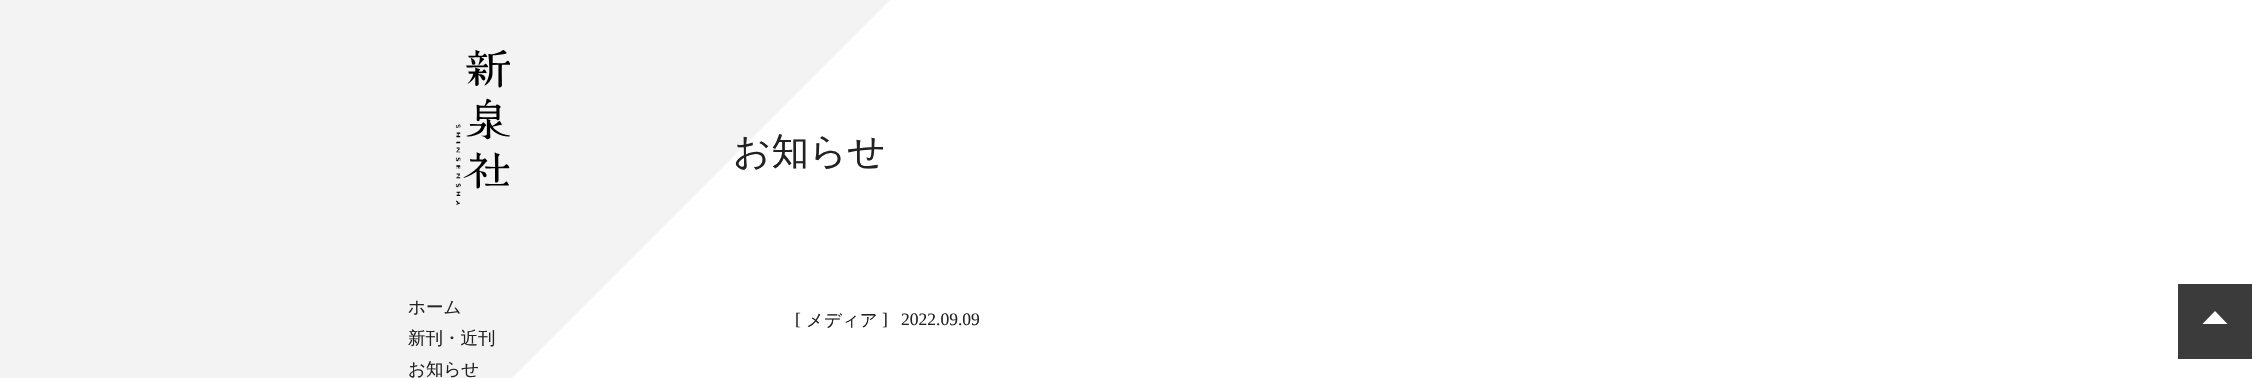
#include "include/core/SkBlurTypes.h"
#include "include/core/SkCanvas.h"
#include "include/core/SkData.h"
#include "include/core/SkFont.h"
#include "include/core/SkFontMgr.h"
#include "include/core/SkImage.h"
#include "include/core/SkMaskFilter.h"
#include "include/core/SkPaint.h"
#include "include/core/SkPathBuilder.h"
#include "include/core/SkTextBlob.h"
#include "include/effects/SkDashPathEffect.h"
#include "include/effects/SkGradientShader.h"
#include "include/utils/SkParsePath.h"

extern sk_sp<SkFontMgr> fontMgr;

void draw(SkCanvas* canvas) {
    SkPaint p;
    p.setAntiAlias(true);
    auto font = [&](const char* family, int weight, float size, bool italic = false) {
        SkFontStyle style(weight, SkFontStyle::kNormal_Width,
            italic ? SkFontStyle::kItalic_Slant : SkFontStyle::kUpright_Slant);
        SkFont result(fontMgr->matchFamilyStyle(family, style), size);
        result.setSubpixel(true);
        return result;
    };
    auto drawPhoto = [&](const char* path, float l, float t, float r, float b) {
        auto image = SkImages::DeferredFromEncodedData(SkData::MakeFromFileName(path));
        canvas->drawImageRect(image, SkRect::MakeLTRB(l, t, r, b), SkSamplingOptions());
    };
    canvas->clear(0xFFFFFFFF);
    drawPhoto("media/1.png", 0, 0, 890, 378);
    auto font1 = font("WenQuanYi Zen Hei", 500, 37.5f);
    p.setColor(0xFF222222);
    canvas->drawString("お知らせ", 733, 164, font1, p);
    auto font2 = font("Liberation Serif", 400, 17.5f);
    canvas->drawString("[", 795, 325, font2, p);
    auto font3 = font("WenQuanYi Zen Hei", 500, 17.5f);
    canvas->drawString("メディア", 806, 326, font3, p);
    canvas->drawString("]", 882, 325, font2, p);
    canvas->drawString("2022.09.09", 901, 325, font2, p);
    drawPhoto("media/2.png", 455, 50, 510, 205);
    {
        const struct { const char* s; float x, y; } items[] = {
            {"ホーム", 408, 313},
            {"新刊・近刊", 408, 344},
            {"お知らせ", 408, 375},
        };
        for (auto [s, x, y] : items) {
            canvas->drawString(s, x, y, font3, p);
        }
    }
    p.setColor(0xFF3B3B3B);
    canvas->drawRect(SkRect::MakeLTRB(2178, 284, 2252, 359), p);
    p.setColor(0xFFFFFFFF);
    canvas->drawPath(SkPathBuilder().moveTo(2227.5f, 324).lineTo(2202.5f, 324).lineTo(2215, 311).close().detach(), p);
}
